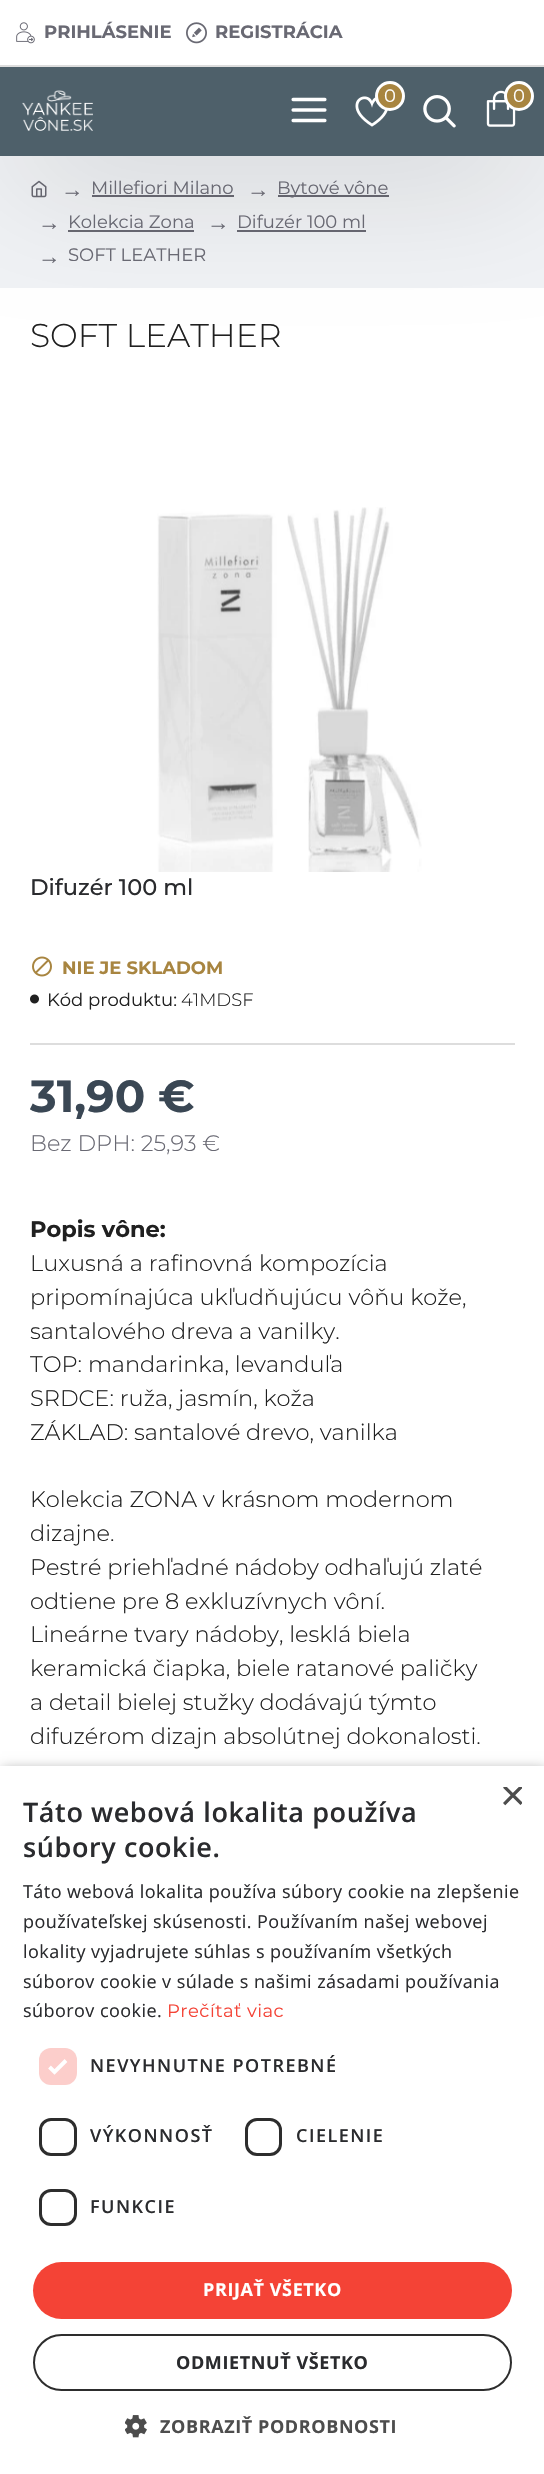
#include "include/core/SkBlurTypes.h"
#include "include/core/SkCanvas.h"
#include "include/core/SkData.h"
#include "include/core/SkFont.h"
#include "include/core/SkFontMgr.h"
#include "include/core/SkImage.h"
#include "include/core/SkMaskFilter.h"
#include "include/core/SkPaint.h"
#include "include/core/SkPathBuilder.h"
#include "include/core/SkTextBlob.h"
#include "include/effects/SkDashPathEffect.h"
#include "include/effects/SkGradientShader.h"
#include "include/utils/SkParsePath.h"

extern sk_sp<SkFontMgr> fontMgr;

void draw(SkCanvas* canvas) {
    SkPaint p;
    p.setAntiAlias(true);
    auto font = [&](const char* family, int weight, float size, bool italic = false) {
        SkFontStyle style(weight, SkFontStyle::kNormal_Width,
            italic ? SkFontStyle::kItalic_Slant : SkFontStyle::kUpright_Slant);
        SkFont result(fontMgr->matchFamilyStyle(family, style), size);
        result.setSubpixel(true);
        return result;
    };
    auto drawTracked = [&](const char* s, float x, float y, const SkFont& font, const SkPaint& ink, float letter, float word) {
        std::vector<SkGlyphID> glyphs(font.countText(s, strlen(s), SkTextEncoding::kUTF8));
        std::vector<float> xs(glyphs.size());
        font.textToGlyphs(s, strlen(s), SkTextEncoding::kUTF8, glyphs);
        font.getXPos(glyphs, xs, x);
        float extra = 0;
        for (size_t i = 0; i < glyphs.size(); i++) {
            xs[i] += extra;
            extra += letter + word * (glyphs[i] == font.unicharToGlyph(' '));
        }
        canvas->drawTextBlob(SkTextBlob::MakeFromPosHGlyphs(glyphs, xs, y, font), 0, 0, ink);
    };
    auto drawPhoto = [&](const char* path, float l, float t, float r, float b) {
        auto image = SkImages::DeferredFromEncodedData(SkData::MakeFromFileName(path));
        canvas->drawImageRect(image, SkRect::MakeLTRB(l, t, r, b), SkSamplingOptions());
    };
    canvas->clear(0xFFFFFFFF);
    p.setColor(0xFFF0F2F5);
    canvas->drawRect(SkRect::MakeLTRB(0, 156, 544, 288), p);
    drawPhoto("media/8.png", 31, 180, 47, 198);
    {
        const struct { float l, t, r, b; SkColor color; } items[] = {
            {92, 195, 234, 197, 0xFF696973},
            {278, 195, 389, 197, 0xFF696973},
            {68, 230, 194, 232, 0xFF696973},
            {237, 230, 366, 232, 0xFF696973},
        };
        for (auto [l, t, r, b, color] : items) {
            p.setColor(color);
            canvas->drawRect(SkRect::MakeLTRB(l, t, r, b), p);
        }
    }
    p.setColor(0x33000000);
    p.setMaskFilter(SkMaskFilter::MakeBlur(kNormal_SkBlurStyle, 67.5f));
    canvas->drawRect(SkRect::MakeLTRB(15, 104, 530, 164), p);
    p.setMaskFilter(nullptr);
    p.setColor(0xFFFFFFFF);
    canvas->drawRect(SkRect::MakeLTRB(0, 0, 544, 65), p);
    p.setColor(0xFFDDDDDD);
    canvas->drawRect(SkRect::MakeLTRB(0, 65, 544, 67), p);
    drawPhoto("media/1.png", 16, 22, 35, 44);
    auto font1 = font("Montserrat", 700, 18);
    p.setColor(0xFF696973);
    canvas->drawString("PRIHLÁSENIE", 44, 38, font1, p);
    drawPhoto("media/2.png", 186, 22, 207, 44);
    canvas->drawString("REGISTRÁCIA", 215, 38, font1, p);
    p.setColor(0xFF4E606A);
    canvas->drawRect(SkRect::MakeLTRB(0, 67, 544, 156), p);
    drawPhoto("media/3.png", 22, 90, 93, 131);
    drawPhoto("media/4.png", 291, 97, 327, 123);
    drawPhoto("media/5.png", 355, 96, 388, 127);
    p.setColor(0xFFA88540);
    canvas->drawCircle(390, 96, 13.5f, p);
    p.setStyle(SkPaint::kStroke_Style);
    p.setStrokeWidth(3);
    p.setColor(0xFFFFFFFF);
    canvas->drawCircle(390, 96, 13.5f, p);
    auto font2 = font("Montserrat", 400, 18);
    p.setStyle(SkPaint::kFill_Style);
    canvas->drawString("0", 384, 102, font2, p);
    drawPhoto("media/6.png", 423, 95, 456, 128);
    drawPhoto("media/7.png", 486, 90, 516, 127);
    p.setColor(0xFFA88540);
    canvas->drawCircle(519, 96, 13.5f, p);
    p.setStyle(SkPaint::kStroke_Style);
    p.setColor(0xFFFFFFFF);
    canvas->drawCircle(519, 96, 13.5f, p);
    p.setStyle(SkPaint::kFill_Style);
    canvas->drawString("0", 513, 102, font2, p);
    auto font3 = font("Liberation Serif", 400, 22.5f);
    p.setColor(0xFF696973);
    canvas->drawString("→", 61, 197, font3, p);
    canvas->drawString("Millefiori Milano", 91, 194, font2, p);
    canvas->drawString("→", 247, 197, font3, p);
    canvas->drawString("Bytové vône", 277, 194, font2, p);
    canvas->drawString("→", 38, 230, font3, p);
    canvas->drawString("Kolekcia Zona", 68, 228, font2, p);
    canvas->drawString("→", 207, 230, font3, p);
    canvas->drawString("Difuzér 100 ml", 237, 228, font2, p);
    canvas->drawString("→", 38, 264, font3, p);
    canvas->drawString("SOFT LEATHER", 68, 261, font2, p);
    auto font4 = font("Montserrat", 300, 33);
    p.setColor(0xFF202020);
    canvas->drawString("SOFT LEATHER", 30, 347, font4, p);
    drawPhoto("media/9.png", 157, 507, 422, 872);
    auto font5 = font("Montserrat", 500, 22.5f);
    p.setColor(0xFF2A2B2E);
    canvas->drawString("Difuzér 100 ml", 30, 895, font5, p);
    p.setColor(0xFFDDDDDD);
    canvas->drawRect(SkRect::MakeLTRB(30, 1043, 515, 1045), p);
    drawPhoto("media/10.png", 32, 956, 52, 977);
    p.setColor(0xFFA88540);
    canvas->drawString("NIE JE SKLADOM", 62, 974, font1, p);
    drawPhoto("media/11.png", 30, 994, 39, 1004);
    p.setColor(0xFF202020);
    canvas->drawString("Kód produktu:", 47, 1006, font2, p);
    auto font6 = font("Montserrat", 300, 18);
    canvas->drawString("41MDSF", 181, 1006, font6, p);
    auto font7 = font("Montserrat", 700, 45);
    p.setColor(0xFF3A4754);
    canvas->drawString("31,90 €", 30, 1112, font7, p);
    auto font8 = font("Montserrat", 300, 22.5f);
    p.setColor(0xFF696973);
    canvas->drawString("Bez DPH: 25,93 €", 30, 1151, font8, p);
    auto font9 = font("Montserrat", 700, 22.5f);
    p.setColor(0xFF202020);
    canvas->drawString("Popis vône:", 30, 1237, font9, p);
    {
        const struct { const char* s; float x, y; } items[] = {
            {"Luxusná a rafinovná kompozícia", 30, 1271},
            {"pripomínajúca ukľudňujúcu vôňu kože,", 30, 1305},
            {"santalového dreva a vanilky.", 30, 1339},
            {"TOP: mandarinka, levanduľa", 30, 1372},
            {"SRDCE: ruža, jasmín, koža", 30, 1406},
            {"ZÁKLAD: santalové drevo, vanilka", 30, 1440},
            {"Kolekcia ZONA v krásnom modernom", 30, 1507},
            {"dizajne.", 30, 1541},
            {"Pestré priehľadné nádoby odhaľujú zlaté", 30, 1575},
            {"odtiene pre 8 exkluzívnych vôní.", 30, 1609},
            {"Lineárne tvary nádoby, lesklá biela", 30, 1642},
            {"keramická čiapka, biele ratanové paličky", 30, 1676},
            {"a detail bielej stužky dodávajú týmto", 30, 1710},
            {"difuzérom dizajn absolútnej dokonalosti.", 30, 1744},
        };
        for (auto [s, x, y] : items) {
            canvas->drawString(s, x, y, font8, p);
        }
    }
    p.setColor(0x59000000);
    p.setMaskFilter(SkMaskFilter::MakeBlur(kNormal_SkBlurStyle, 6));
    canvas->drawRect(SkRect::MakeLTRB(2, 1769, 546, 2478), p);
    p.setMaskFilter(nullptr);
    p.setColor(0xFFFFFFFF);
    canvas->drawRect(SkRect::MakeLTRB(0, 1766, 544, 2474), p);
    canvas->save();
    canvas->clipRect(SkRect::MakeLTRB(500, 1787, 522, 1809));
    auto font10 = font("Liberation Sans", 400, 44);
    p.setColor(0xFF4D4D4D);
    canvas->drawString("×", 500, 1810, font10, p);
    canvas->restore();
    auto font11 = font("Open Sans", 600, 27);
    p.setColor(0xFF2A2B2E);
    drawTracked("Táto webová lokalita používa", 23, 1822, font11, p, 0.6f, 0);
    drawTracked("súbory cookie.", 23, 1857, font11, p, 0.6f, 0);
    auto font12 = font("Open Sans", 400, 18);
    {
        const struct { const char* s; float x, y; } items[] = {
            {"Táto webová lokalita používa súbory cookie na zlepšenie", 23, 1898},
            {"používateľskej skúsenosti. Používaním našej webovej", 23, 1928},
            {"lokality vyjadrujete súhlas s používaním všetkých", 23, 1958},
            {"súborov cookie v súlade s našimi zásadami používania", 23, 1988},
            {"súborov cookie.", 23, 2017},
        };
        for (auto [s, x, y] : items) {
            drawTracked(s, x, y, font12, p, 0.45f, 0);
        }
    }
    p.setColor(0xFFF44336);
    drawTracked("Prečítať viac", 167, 2017, font2, p, 0.45f, 0);
    p.setColor(0xFFFCCECB);
    canvas->drawRoundRect(SkRect::MakeLTRB(39, 2048, 77, 2085), 12, 12, p);
    p.setStyle(SkPaint::kStroke_Style);
    p.setStrokeWidth(3.9f);
    p.setColor(0xFFFFFFFF);
    canvas->drawPath(SkPathBuilder().moveTo(49.5f, 2067).lineTo(54.5f, 2072).lineTo(66, 2060.5f).detach(), p);
    auto font13 = font("Open Sans", 600, 18);
    p.setStyle(SkPaint::kFill_Style);
    p.setColor(0xFF2A2B2E);
    drawTracked("NEVYHNUTNE POTREBNÉ", 90, 2072, font13, p, 1.5f, 0);
    p.setStyle(SkPaint::kStroke_Style);
    p.setStrokeWidth(3);
    p.setColor(0xFF2D2D2D);
    canvas->drawRoundRect(SkRect::MakeLTRB(40.5f, 2119.5f, 75.5f, 2154.5f), 10.5f, 10.5f, p);
    p.setStyle(SkPaint::kFill_Style);
    p.setColor(0xFF2A2B2E);
    drawTracked("VÝKONNOSŤ", 90, 2142, font13, p, 1.5f, 0);
    p.setStyle(SkPaint::kStroke_Style);
    p.setColor(0xFF2D2D2D);
    canvas->drawRoundRect(SkRect::MakeLTRB(246.5f, 2119.5f, 280.5f, 2154.5f), 10.5f, 10.5f, p);
    p.setStyle(SkPaint::kFill_Style);
    p.setColor(0xFF2A2B2E);
    drawTracked("CIELENIE", 296, 2142, font13, p, 1.5f, 0);
    p.setStyle(SkPaint::kStroke_Style);
    p.setColor(0xFF2D2D2D);
    canvas->drawRoundRect(SkRect::MakeLTRB(40.5f, 2190.5f, 75.5f, 2224.5f), 10.5f, 10.5f, p);
    p.setStyle(SkPaint::kFill_Style);
    p.setColor(0xFF2A2B2E);
    drawTracked("FUNKCIE", 90, 2213, font13, p, 1.5f, 0);
    p.setColor(0xFFF44336);
    canvas->drawRoundRect(SkRect::MakeLTRB(33, 2262, 512, 2319), 28.5f, 28.5f, p);
    auto font14 = font("Open Sans", 700, 18);
    p.setColor(0xFFFFFFFF);
    drawTracked("PRIJAŤ VŠETKO", 203, 2296, font14, p, 0.6f, 0);
    p.setStyle(SkPaint::kStroke_Style);
    p.setStrokeWidth(2);
    p.setColor(0xFF2D2D2D);
    canvas->drawRoundRect(SkRect::MakeLTRB(34, 2335, 511, 2390), 27.5f, 27.5f, p);
    p.setStyle(SkPaint::kFill_Style);
    p.setColor(0xFF2A2B2E);
    drawTracked("ODMIETNUŤ VŠETKO", 176, 2369, font14, p, 0.6f, 0);
    drawPhoto("media/12.png", 125, 2415, 147, 2438);
    p.setColor(0xFF4D4D4D);
    drawTracked("ZOBRAZIŤ PODROBNOSTI", 160, 2433, font14, p, 0.6f, 0);
}
